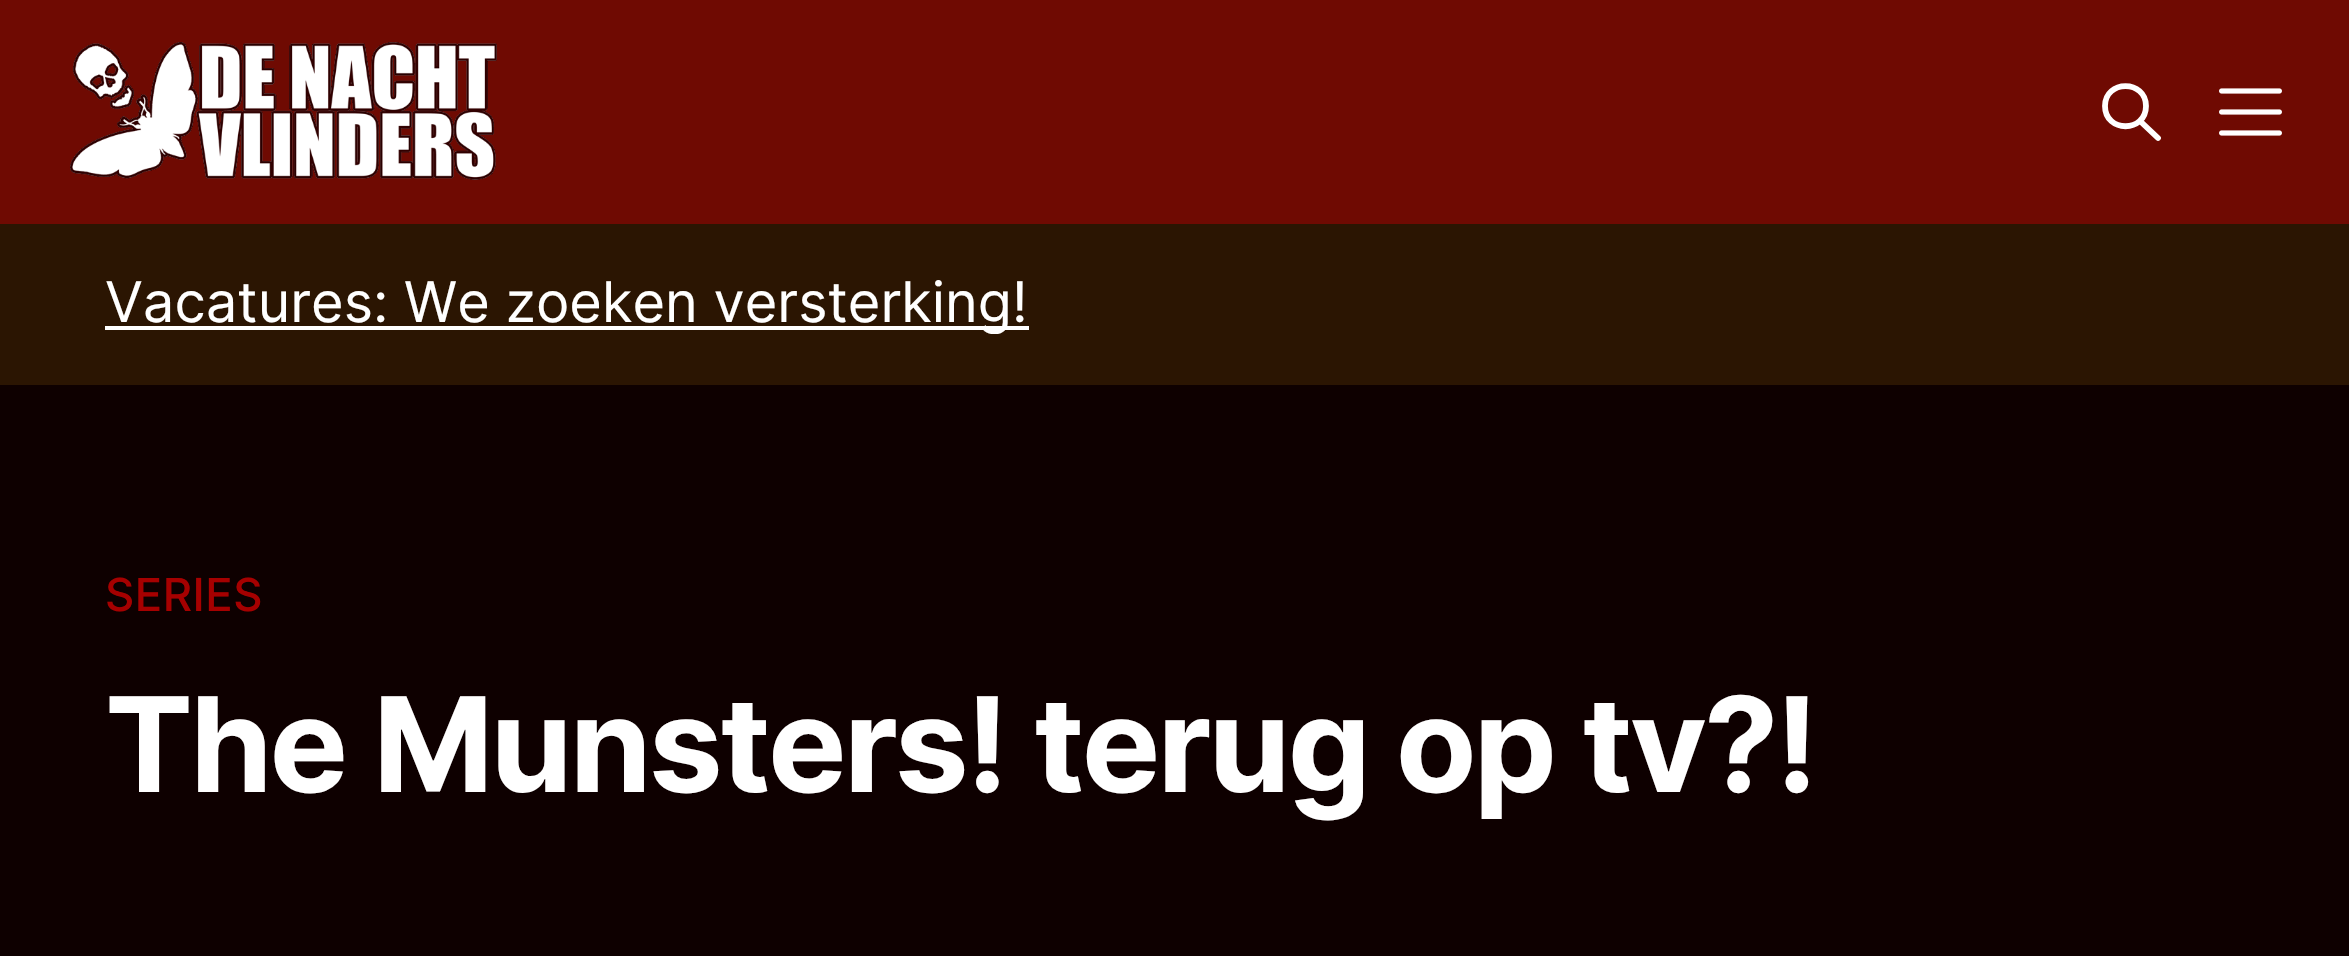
#include "include/core/SkBlurTypes.h"
#include "include/core/SkCanvas.h"
#include "include/core/SkData.h"
#include "include/core/SkFont.h"
#include "include/core/SkFontMgr.h"
#include "include/core/SkImage.h"
#include "include/core/SkMaskFilter.h"
#include "include/core/SkPaint.h"
#include "include/core/SkPathBuilder.h"
#include "include/core/SkTextBlob.h"
#include "include/effects/SkDashPathEffect.h"
#include "include/effects/SkGradientShader.h"
#include "include/utils/SkParsePath.h"

extern sk_sp<SkFontMgr> fontMgr;

void draw(SkCanvas* canvas) {
    SkPaint p;
    p.setAntiAlias(true);
    auto font = [&](const char* family, int weight, float size, bool italic = false) {
        SkFontStyle style(weight, SkFontStyle::kNormal_Width,
            italic ? SkFontStyle::kItalic_Slant : SkFontStyle::kUpright_Slant);
        SkFont result(fontMgr->matchFamilyStyle(family, style), size);
        result.setSubpixel(true);
        return result;
    };
    auto drawTracked = [&](const char* s, float x, float y, const SkFont& font, const SkPaint& ink, float letter, float word) {
        std::vector<SkGlyphID> glyphs(font.countText(s, strlen(s), SkTextEncoding::kUTF8));
        std::vector<float> xs(glyphs.size());
        font.textToGlyphs(s, strlen(s), SkTextEncoding::kUTF8, glyphs);
        font.getXPos(glyphs, xs, x);
        float extra = 0;
        for (size_t i = 0; i < glyphs.size(); i++) {
            xs[i] += extra;
            extra += letter + word * (glyphs[i] == font.unicharToGlyph(' '));
        }
        canvas->drawTextBlob(SkTextBlob::MakeFromPosHGlyphs(glyphs, xs, y, font), 0, 0, ink);
    };
    auto drawPhoto = [&](const char* path, float l, float t, float r, float b) {
        auto image = SkImages::DeferredFromEncodedData(SkData::MakeFromFileName(path));
        canvas->drawImageRect(image, SkRect::MakeLTRB(l, t, r, b), SkSamplingOptions());
    };
    canvas->clear(0xFF0E0000);
    p.setColor(0xFF6F0A02);
    canvas->drawRect(SkRect::MakeLTRB(0, 0, 2349, 224), p);
    drawPhoto("media/1.png", 70, 42, 497, 180);
    p.setStyle(SkPaint::kStroke_Style);
    p.setStrokeWidth(5.8f);
    p.setStrokeCap(SkPaint::kRound_Cap);
    p.setStrokeJoin(SkPaint::kRound_Join);
    p.setColor(0xFFFFFFFF);
    canvas->drawPath(SkPathBuilder().moveTo(2158, 138).lineTo(2140, 121).moveTo(2146, 106).cubicTo(2146, 133, 2105, 133, 2105, 106).cubicTo(2105, 79.5f, 2146, 79.5f, 2146, 106).close().detach(), p);
    drawPhoto("media/2.png", 2219, 88, 2282, 136);
    p.setStyle(SkPaint::kFill_Style);
    p.setColor(0xFF2B1502);
    canvas->drawRect(SkRect::MakeLTRB(0, 224, 2349, 385), p);
    p.setColor(0xFFFFFFFF);
    canvas->drawRect(SkRect::MakeLTRB(105, 326, 1029, 330), p);
    auto font1 = font("Inter", 400, 56);
    canvas->drawString("Vacatures: We zoeken versterking!", 105, 322, font1, p);
    auto font2 = font("Inter", 500, 45.5f);
    p.setColor(0xFFA60000);
    drawTracked("SERIES", 105, 611, font2, p, 0.5f, 0);
    auto font3 = font("Inter", 700, 131.75f);
    p.setColor(0xFFFFFFFF);
    drawTracked("The Munsters! terug op tv?!", 105, 792, font3, p, -2.9f, 0);
}
